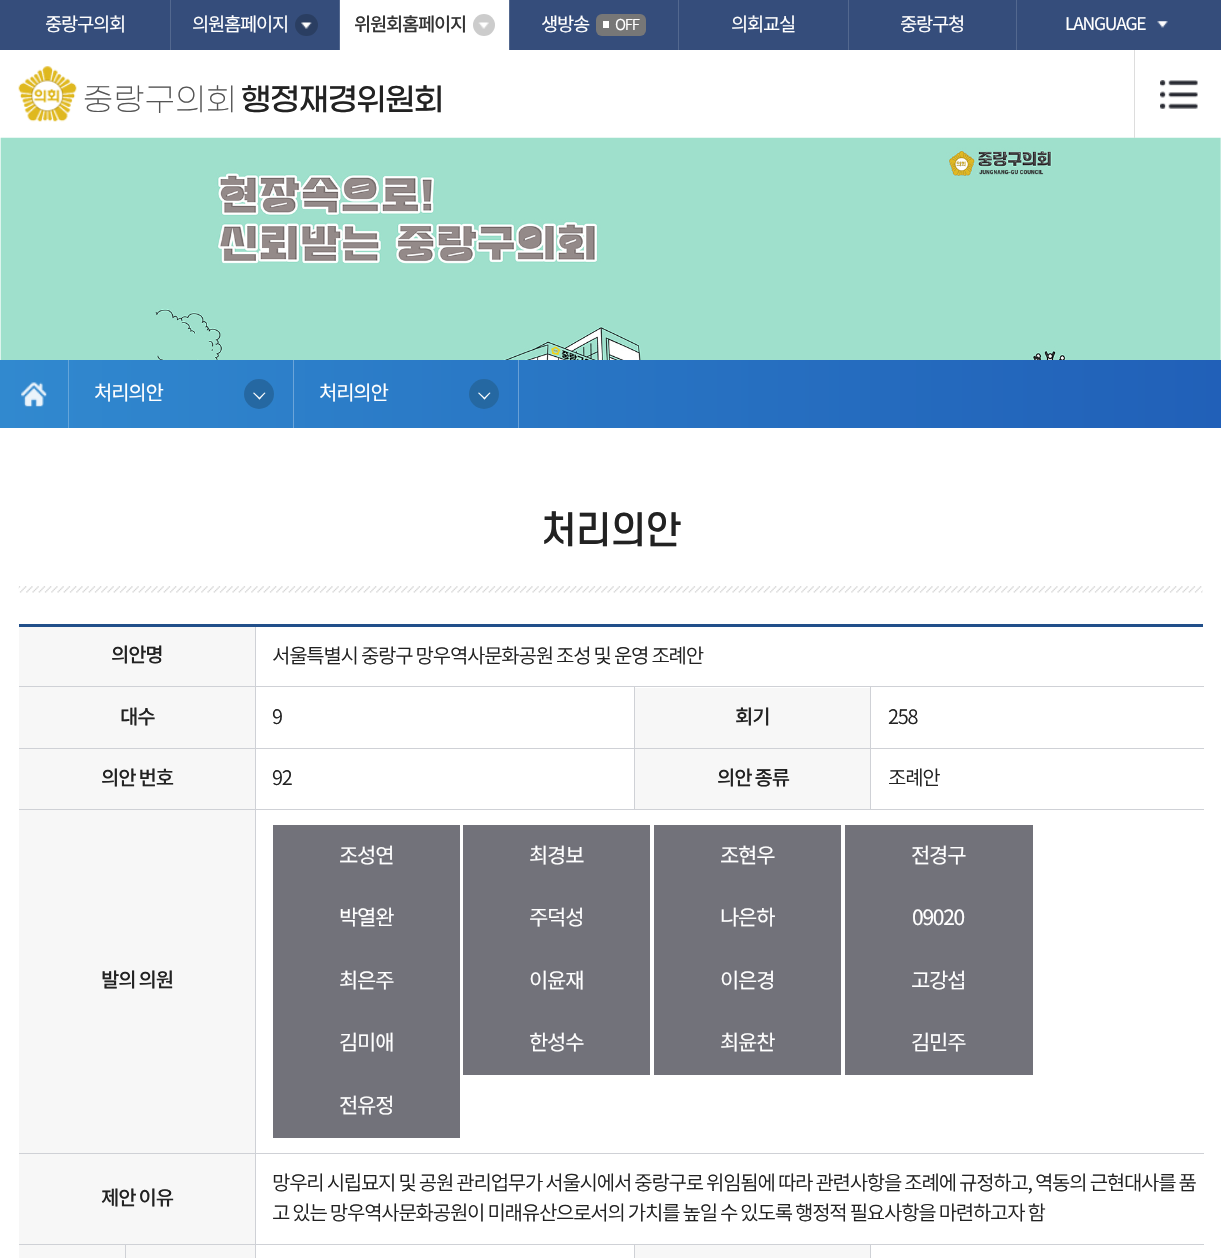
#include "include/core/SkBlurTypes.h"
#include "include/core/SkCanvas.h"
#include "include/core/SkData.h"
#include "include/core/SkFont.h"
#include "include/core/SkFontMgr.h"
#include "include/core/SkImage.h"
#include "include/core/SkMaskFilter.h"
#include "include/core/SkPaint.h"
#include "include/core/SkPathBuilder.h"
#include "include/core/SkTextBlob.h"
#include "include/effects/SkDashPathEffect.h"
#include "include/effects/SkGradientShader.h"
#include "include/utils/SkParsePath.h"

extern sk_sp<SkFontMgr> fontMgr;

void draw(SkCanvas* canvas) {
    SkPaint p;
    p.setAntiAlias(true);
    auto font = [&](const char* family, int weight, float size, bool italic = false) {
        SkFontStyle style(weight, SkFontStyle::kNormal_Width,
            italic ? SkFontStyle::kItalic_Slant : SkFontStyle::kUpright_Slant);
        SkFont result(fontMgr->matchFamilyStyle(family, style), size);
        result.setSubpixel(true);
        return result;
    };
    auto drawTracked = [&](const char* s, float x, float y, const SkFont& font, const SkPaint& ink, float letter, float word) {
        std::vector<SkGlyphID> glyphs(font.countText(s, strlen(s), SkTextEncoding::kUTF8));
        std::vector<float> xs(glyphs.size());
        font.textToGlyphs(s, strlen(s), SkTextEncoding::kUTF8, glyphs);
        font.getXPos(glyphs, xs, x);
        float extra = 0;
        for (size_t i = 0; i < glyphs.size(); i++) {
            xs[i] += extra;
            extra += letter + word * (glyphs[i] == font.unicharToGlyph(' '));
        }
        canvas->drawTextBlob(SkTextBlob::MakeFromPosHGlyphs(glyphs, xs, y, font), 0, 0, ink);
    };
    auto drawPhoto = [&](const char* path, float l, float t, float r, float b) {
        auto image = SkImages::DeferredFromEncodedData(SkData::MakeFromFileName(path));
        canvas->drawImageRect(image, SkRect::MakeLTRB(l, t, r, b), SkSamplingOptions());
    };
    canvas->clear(0xFFFFFFFF);
    p.setColor(0xFF354D7B);
    canvas->drawRect(SkRect::MakeLTRB(0, 0, 1221, 50), p);
    p.setColor(0xFF53688F);
    canvas->drawRect(SkRect::MakeLTRB(1016, 0, 1017, 50), p);
    auto font1 = font("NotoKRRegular", 400, 18.75f);
    p.setColor(0xFFFFFFFF);
    drawTracked("중랑구의회", 45, 31, font1, p, -1.25f, 0);
    p.setColor(0xFF53688F);
    canvas->drawRect(SkRect::MakeLTRB(170, 0, 171, 50), p);
    p.setColor(0xFFFFFFFF);
    drawTracked("의원홈페이지", 192, 31, font1, p, -1.25f, 0);
    p.setColor(0xFF2A3E62);
    canvas->drawRoundRect(SkRect::MakeLTRB(295, 14, 318, 36), 11, 11, p);
    drawPhoto("media/1.png", 301, 22, 312, 29);
    p.setColor(0xFF53688F);
    canvas->drawRect(SkRect::MakeLTRB(339, 0, 340, 50), p);
    p.setColor(0xFFFFFFFF);
    canvas->drawRect(SkRect::MakeLTRB(340, 0, 509, 50), p);
    auto font2 = font("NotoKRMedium", 500, 18.75f);
    p.setColor(0xFF333333);
    drawTracked("위원회홈페이지", 354, 31, font2, p, -1.25f, 0);
    p.setColor(0xFFCCCCCC);
    canvas->drawCircle(484, 25, 11, p);
    drawPhoto("media/2.png", 478, 22, 489, 29);
    p.setColor(0xFF53688F);
    canvas->drawRect(SkRect::MakeLTRB(509, 0, 510, 50), p);
    p.setColor(0xFFFFFFFF);
    drawTracked("생방송", 541, 31, font1, p, -1.25f, 0);
    p.setColor(0xFF777777);
    canvas->drawRoundRect(SkRect::MakeLTRB(596, 14, 646, 36), 6, 6, p);
    p.setColor(0xFFFFFFFF);
    canvas->drawRect(SkRect::MakeLTRB(603, 21, 609, 28), p);
    auto font3 = font("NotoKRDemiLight", 300, 15);
    drawTracked("OFF", 615, 30, font3, p, -1.25f, 0);
    p.setColor(0xFF53688F);
    canvas->drawRect(SkRect::MakeLTRB(678, 0, 679, 50), p);
    p.setColor(0xFFFFFFFF);
    drawTracked("의회교실", 731, 31, font1, p, -1.25f, 0);
    p.setColor(0xFF53688F);
    canvas->drawRect(SkRect::MakeLTRB(848, 0, 849, 50), p);
    p.setColor(0xFFFFFFFF);
    drawTracked("중랑구청", 900, 31, font1, p, -1.25f, 0);
    auto font4 = font("NotoKRRegular", 400, 17.5f);
    drawTracked("LANGUAGE", 1065, 30, font4, p, -1.25f, 0);
    drawPhoto("media/3.png", 1157, 21, 1168, 28);
    drawPhoto("media/4.png", 18, 66, 77, 122);
    auto font5 = font("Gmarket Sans", 300, 31.25f);
    p.setColor(0xFF555555);
    drawTracked("중랑구의회", 83, 109, font5, p, 0.75f, 0);
    auto font6 = font("Gmarket Sans", 500, 31.25f);
    p.setColor(0xFF222222);
    drawTracked("행정재경위원회", 241, 109, font6, p, -1.25f, 0);
    drawPhoto("media/5.png", 1160, 80, 1198, 109);
    drawPhoto("media/6.png", 0, 137, 1221, 360);
    p.setColor(0xFFDDDDDD);
    canvas->drawRect(SkRect::MakeLTRB(1134, 50, 1135, 138), p);
    {
        const SkColor colors[] = {0xFF3189CF, 0xFF2874C3, 0xFF2160B8};
        const float stops[] = {0, 0.5f, 1};
        const SkPoint ends[] = {{0, 394}, {1221, 394}};
        p.setShader(SkGradientShader::MakeLinear(ends, colors, stops, 3, SkTileMode::kClamp));
        p.setAlpha(255);
    }
    canvas->drawRect(SkRect::MakeLTRB(0, 360, 1221, 428), p);
    drawPhoto("media/7.png", 21, 382, 47, 407);
    p.setShader(nullptr);
    p.setColor(0xFF64A5DA);
    canvas->drawRect(SkRect::MakeLTRB(68, 360, 69, 428), p);
    p.setColor(0xFF6CA5D9);
    canvas->drawRect(SkRect::MakeLTRB(293, 360, 294, 428), p);
    auto font7 = font("NotoKRRegular", 400, 20);
    p.setColor(0xFFFFFFFF);
    drawTracked("처리의안", 94, 400, font7, p, -1.25f, 0);
    p.setColor(0xFF2568A2);
    canvas->drawCircle(259, 394, 15, p);
    p.setColor(0xFFFFFFFF);
    canvas->drawPath(SkPathBuilder().moveTo(265.5f, 393).lineTo(259.5f, 399.5f).lineTo(258.5f, 398.5f).lineTo(264.5f, 392.5f).close().detach(), p);
    canvas->drawPath(SkPathBuilder().moveTo(260.5f, 398.5f).lineTo(259.5f, 399.5f).lineTo(253, 393).lineTo(254, 392.5f).close().detach(), p);
    p.setColor(0xFF69A0D6);
    canvas->drawRect(SkRect::MakeLTRB(518, 360, 519, 428), p);
    p.setColor(0xFFFFFFFF);
    drawTracked("처리의안", 319, 400, font7, p, -1.25f, 0);
    p.setColor(0xFF2568A2);
    canvas->drawCircle(484, 394, 15, p);
    p.setColor(0xFFFFFFFF);
    canvas->drawPath(SkPathBuilder().moveTo(490.5f, 393).lineTo(484.5f, 399.5f).lineTo(483.5f, 398.5f).lineTo(489.5f, 392.5f).close().detach(), p);
    canvas->drawPath(SkPathBuilder().moveTo(485.5f, 398.5f).lineTo(484.5f, 399.5f).lineTo(478, 393).lineTo(479, 392.5f).close().detach(), p);
    drawPhoto("media/8.png", 18, 586, 1203, 593);
    auto font8 = font("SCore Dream", 500, 37.5f);
    p.setColor(0xFF222222);
    drawTracked("처리의안", 541, 544, font8, p, -1.25f, 0);
    {
        const struct { float l, t, r, b; SkColor color; } items[] = {
            {870, 809, 1204, 810, 0xFFCFD1D6},
            {870, 748, 871, 810, 0xFFCFD1D6},
            {870, 748, 1204, 749, 0xFFCFD1D6},
            {870, 686, 871, 749, 0xFFCFD1D6},
            {634, 809, 871, 810, 0xFFCFD1D6},
            {634, 748, 635, 810, 0xFFCFD1D6},
            {634, 748, 871, 749, 0xFFCFD1D6},
            {634, 686, 635, 749, 0xFFCFD1D6},
            {255, 1244, 256, 1258, 0xFFCFD1D6},
            {870, 1244, 871, 1258, 0xFFCFD1D6},
            {634, 1244, 635, 1258, 0xFFCFD1D6},
            {255, 1244, 1204, 1245, 0xFFCFD1D6},
            {255, 1153, 256, 1245, 0xFFCFD1D6},
            {255, 1153, 1204, 1154, 0xFFCFD1D6},
            {255, 809, 256, 1154, 0xFFCFD1D6},
            {255, 809, 635, 810, 0xFFCFD1D6},
            {255, 748, 256, 810, 0xFFCFD1D6},
            {255, 748, 635, 749, 0xFFCFD1D6},
            {255, 686, 256, 749, 0xFFCFD1D6},
            {255, 686, 1204, 687, 0xFFCFD1D6},
            {255, 625, 256, 688, 0xFFCFD1D6},
            {19, 624, 1203, 627, 0xFF214F8A},
            {19, 627, 255, 748, 0xFFF7F7F7},
            {19, 686, 256, 687, 0xFFCFD1D6},
        };
        for (auto [l, t, r, b, color] : items) {
            p.setColor(color);
            canvas->drawRect(SkRect::MakeLTRB(l, t, r, b), p);
        }
    }
    auto font9 = font("NotoKRMedium", 500, 20);
    p.setColor(0xFF222222);
    drawTracked("의안명", 111, 662, font9, p, -1.25f, 0);
    auto font10 = font("NotoKRDemiLight", 300, 20);
    drawTracked("서울특별시 중랑구 망우역사문화공원 조성 및 운영 조례안", 272, 663, font10, p, -1.25f, 0);
    p.setColor(0xFFCFD1D6);
    canvas->drawRect(SkRect::MakeLTRB(19, 748, 256, 749), p);
    p.setColor(0xFF222222);
    drawTracked("대수", 120, 724, font9, p, -1.25f, 0);
    drawTracked("9", 272, 724, font10, p, -1.25f, 0);
    p.setColor(0xFFF7F7F7);
    canvas->drawRect(SkRect::MakeLTRB(635, 688, 870, 748), p);
    p.setColor(0xFF222222);
    drawTracked("회기", 735, 724, font9, p, -1.25f, 0);
    drawTracked("258", 888, 724, font10, p, -1.25f, 0);
    p.setColor(0xFFF7F7F7);
    canvas->drawRect(SkRect::MakeLTRB(19, 749, 255, 809), p);
    p.setColor(0xFFCFD1D6);
    canvas->drawRect(SkRect::MakeLTRB(19, 809, 256, 810), p);
    p.setColor(0xFF222222);
    drawTracked("의안 번호", 101, 785, font9, p, -1.25f, 0);
    drawTracked("92", 272, 785, font10, p, -1.25f, 0);
    p.setColor(0xFFF7F7F7);
    canvas->drawRect(SkRect::MakeLTRB(635, 749, 870, 809), p);
    p.setColor(0xFF222222);
    drawTracked("의안 종류", 717, 785, font9, p, -1.25f, 0);
    drawTracked("조례안", 888, 785, font10, p, -1.25f, 0);
    p.setColor(0xFFF7F7F7);
    canvas->drawRect(SkRect::MakeLTRB(19, 810, 255, 1153), p);
    p.setColor(0xFFCFD1D6);
    canvas->drawRect(SkRect::MakeLTRB(19, 1153, 256, 1154), p);
    p.setColor(0xFF222222);
    drawTracked("발의 의원", 101, 987, font9, p, -1.25f, 0);
    p.setColor(0xFF72727A);
    canvas->drawRect(SkRect::MakeLTRB(273, 825, 460, 1138), p);
    auto font11 = font("NotoKRRegular", 400, 21);
    p.setColor(0xFFFFFFFF);
    drawTracked("조성연", 339, 863, font11, p, -1.25f, 0);
    p.setColor(0xFF72727A);
    canvas->drawRect(SkRect::MakeLTRB(463, 825, 650, 1075), p);
    p.setColor(0xFFFFFFFF);
    drawTracked("최경보", 529, 863, font11, p, -1.25f, 0);
    p.setColor(0xFF72727A);
    canvas->drawRect(SkRect::MakeLTRB(654, 825, 841, 1075), p);
    p.setColor(0xFFFFFFFF);
    drawTracked("조현우", 720, 863, font11, p, -1.25f, 0);
    p.setColor(0xFF72727A);
    canvas->drawRect(SkRect::MakeLTRB(845, 825, 1033, 1075), p);
    p.setColor(0xFFFFFFFF);
    {
        const struct { const char* s; float x, y; } items[] = {
            {"전경구", 911, 863},
            {"박열완", 339, 925},
            {"주덕성", 529, 925},
            {"나은하", 720, 925},
            {"09020", 912, 925},
            {"최은주", 339, 988},
            {"이윤재", 529, 988},
            {"이은경", 720, 988},
            {"고강섭", 911, 988},
            {"김미애", 339, 1050},
            {"한성수", 529, 1050},
            {"최윤찬", 720, 1050},
            {"김민주", 911, 1050},
            {"전유정", 339, 1113},
        };
        for (auto [s, x, y] : items) {
            drawTracked(s, x, y, font11, p, -1.25f, 0);
        }
    }
    {
        const struct { float l, t, r, b; SkColor color; } items[] = {
            {19, 1154, 255, 1244, 0xFFF7F7F7},
            {125, 1244, 126, 1258, 0xFFCFD1D6},
            {19, 1244, 256, 1245, 0xFFCFD1D6},
        };
        for (auto [l, t, r, b, color] : items) {
            p.setColor(color);
            canvas->drawRect(SkRect::MakeLTRB(l, t, r, b), p);
        }
    }
    p.setColor(0xFF222222);
    drawTracked("제안 이유", 101, 1205, font9, p, -1.25f, 0);
    drawTracked("망우리 시립묘지 및 공원 관리업무가 서울시에서 중랑구로 위임됨에 따라 관련사항을 조례에 규정하고, 역동의 근현대사를 품", 272, 1190, font10, p, -1.25f, 0);
    drawTracked("고 있는 망우역사문화공원이 미래유산으로서의 가치를 높일 수 있도록 행정적 필요사항을 마련하고자 함", 272, 1220, font10, p, -1.25f, 0);
    {
        const struct { float l, t, r, b; SkColor color; } items[] = {
            {19, 1245, 125, 1258, 0xFFF7F7F7},
            {126, 1245, 255, 1258, 0xFFF7F7F7},
            {635, 1245, 870, 1258, 0xFFF7F7F7},
        };
        for (auto [l, t, r, b, color] : items) {
            p.setColor(color);
            canvas->drawRect(SkRect::MakeLTRB(l, t, r, b), p);
        }
    }
}
